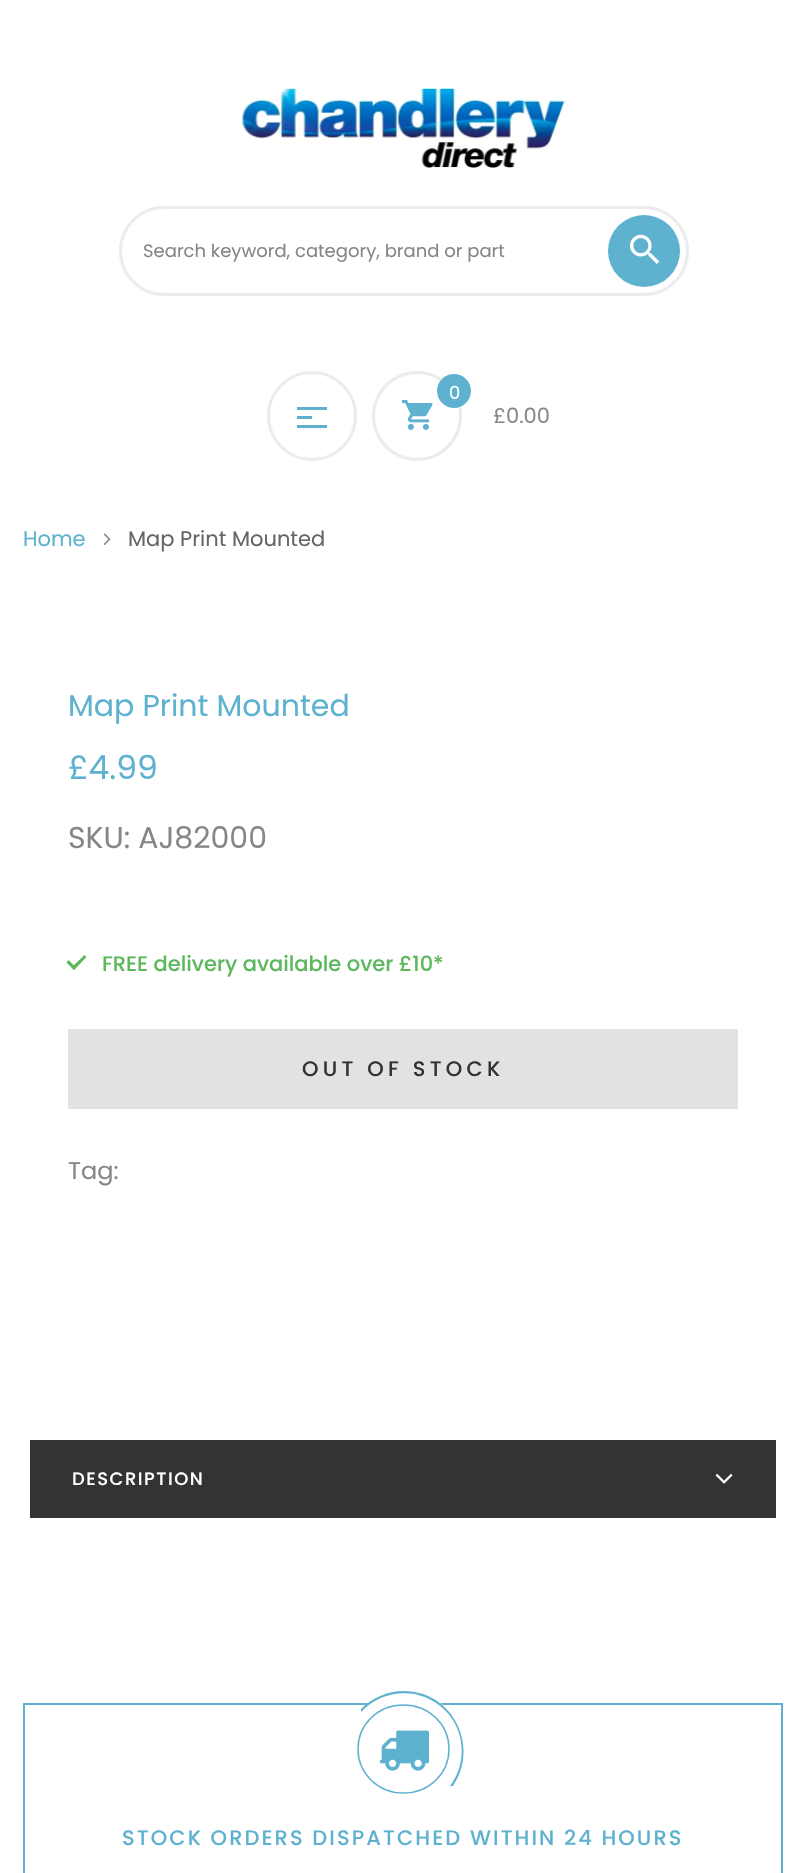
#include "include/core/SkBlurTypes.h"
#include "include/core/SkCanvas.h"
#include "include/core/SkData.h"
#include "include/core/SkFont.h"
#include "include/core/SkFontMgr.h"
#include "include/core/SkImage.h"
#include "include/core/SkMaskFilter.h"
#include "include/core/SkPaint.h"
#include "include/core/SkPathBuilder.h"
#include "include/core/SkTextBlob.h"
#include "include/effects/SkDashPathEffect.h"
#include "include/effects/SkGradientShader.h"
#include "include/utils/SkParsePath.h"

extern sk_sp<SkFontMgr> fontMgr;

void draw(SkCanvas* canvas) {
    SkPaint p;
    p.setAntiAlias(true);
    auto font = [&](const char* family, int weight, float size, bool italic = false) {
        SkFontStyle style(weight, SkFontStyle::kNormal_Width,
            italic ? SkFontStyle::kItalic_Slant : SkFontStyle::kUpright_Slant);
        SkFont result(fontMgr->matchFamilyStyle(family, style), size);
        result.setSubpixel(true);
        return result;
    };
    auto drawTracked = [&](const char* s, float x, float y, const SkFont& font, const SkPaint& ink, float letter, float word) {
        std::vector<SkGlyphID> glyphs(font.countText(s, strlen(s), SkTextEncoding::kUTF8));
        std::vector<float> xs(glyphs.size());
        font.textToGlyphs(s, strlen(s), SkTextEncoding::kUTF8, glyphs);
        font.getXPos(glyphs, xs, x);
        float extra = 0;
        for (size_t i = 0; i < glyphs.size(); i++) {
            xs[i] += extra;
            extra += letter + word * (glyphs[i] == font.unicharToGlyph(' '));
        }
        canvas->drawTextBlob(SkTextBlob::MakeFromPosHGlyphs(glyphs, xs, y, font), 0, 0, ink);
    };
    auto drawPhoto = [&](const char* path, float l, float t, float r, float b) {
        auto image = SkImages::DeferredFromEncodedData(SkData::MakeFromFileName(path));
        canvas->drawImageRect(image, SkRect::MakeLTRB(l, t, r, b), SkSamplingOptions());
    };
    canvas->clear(0xFFFFFFFF);
    drawPhoto("media/1.png", 241, 85, 565, 168);
    p.setStyle(SkPaint::kStroke_Style);
    p.setStrokeWidth(3);
    p.setColor(0xFFECECEC);
    canvas->drawRoundRect(SkRect::MakeLTRB(120.5f, 207.5f, 687.5f, 294.5f), 43.5f, 43.5f, p);
    auto font1 = font("Poppins", 400, 18);
    p.setStyle(SkPaint::kFill_Style);
    p.setColor(0xFF868686);
    canvas->drawString("Search keyword, category, brand or part", 143, 257, font1, p);
    p.setColor(0xFF5EB2D0);
    canvas->drawCircle(644, 251, 36, p);
    drawPhoto("media/2.png", 630, 234, 660, 264);
    p.setStyle(SkPaint::kStroke_Style);
    p.setColor(0xFFECECEC);
    canvas->drawCircle(312, 416, 43.5f, p);
    p.setStyle(SkPaint::kFill_Style);
    {
        const struct { float l, t, r, b; SkColor color; } items[] = {
            {297, 407, 327, 410, 0xFF5EB2D0},
            {297, 416, 312, 419, 0xFF5EB2D0},
            {297, 425, 327, 428, 0xFF5EB2D0},
        };
        for (auto [l, t, r, b, color] : items) {
            p.setColor(color);
            canvas->drawRect(SkRect::MakeLTRB(l, t, r, b), p);
        }
    }
    p.setStyle(SkPaint::kStroke_Style);
    p.setColor(0xFFECECEC);
    canvas->drawCircle(417, 416, 43.5f, p);
    p.setStyle(SkPaint::kFill_Style);
    p.setColor(0xFF5EB2D0);
    canvas->drawCircle(454, 391, 17, p);
    p.setColor(0xFFFFFFFF);
    canvas->drawString("0", 449, 399, font1, p);
    drawPhoto("media/3.png", 402, 399, 433, 430);
    auto font2 = font("Poppins", 400, 21);
    p.setColor(0xFF868686);
    canvas->drawString("£0.00", 493, 423, font2, p);
    p.setColor(0xFF5EB2D0);
    canvas->drawString("Home", 23, 546, font2, p);
    drawPhoto("media/4.png", 103, 533, 111, 545);
    p.setColor(0xFF666666);
    canvas->drawString("Map Print Mounted", 128, 546, font2, p);
    auto font3 = font("Poppins", 400, 30);
    p.setColor(0xFF5EB2D0);
    canvas->drawString("Map Print Mounted", 68, 716, font3, p);
    auto font4 = font("Poppins", 400, 33);
    canvas->drawString("£4.99", 68, 779, font4, p);
    p.setColor(0xFF868686);
    canvas->drawString("SKU: AJ82000", 68, 848, font3, p);
    p.setColor(0xFF5CB85C);
    canvas->drawPath(SkPathBuilder().moveTo(71.5f, 967.5f).lineTo(84.5f, 955).lineTo(86.5f, 957).lineTo(74, 970).close().detach(), p);
    canvas->drawPath(SkPathBuilder().moveTo(66.5f, 962.5f).lineTo(68.5f, 960).lineTo(76, 967.5f).lineTo(74, 970).close().detach(), p);
    auto font5 = font("Poppins", 500, 21);
    canvas->drawString("FREE delivery available over £10*", 102, 971, font5, p);
    p.setColor(0xFFE2E2E2);
    canvas->drawRect(SkRect::MakeLTRB(68, 1029, 738, 1109), p);
    p.setColor(0xFF333333);
    drawTracked("OUT OF STOCK", 302, 1076, font5, p, 4.25f, 0);
    auto font6 = font("Poppins", 400, 24);
    p.setColor(0xFF868686);
    canvas->drawString("Tag:", 68, 1179, font6, p);
    p.setColor(0xFF333333);
    canvas->drawRect(SkRect::MakeLTRB(30, 1440, 776, 1518), p);
    auto font7 = font("Poppins", 500, 18);
    p.setColor(0xFFFFFFFF);
    drawTracked("DESCRIPTION", 72, 1485, font7, p, 1.5f, 0);
    drawPhoto("media/5.png", 715, 1474, 733, 1484);
    p.setStyle(SkPaint::kStroke_Style);
    p.setStrokeWidth(2);
    p.setColor(0xFF5EB2D0);
    canvas->drawRect(SkRect::MakeLTRB(24, 1704, 782, 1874), p);
    p.setStyle(SkPaint::kFill_Style);
    p.setColor(0xFFFFFFFF);
    canvas->drawCircle(404, 1751, 60, p);
    p.setStyle(SkPaint::kStroke_Style);
    p.setStrokeWidth(1.5f);
    p.setColor(0xFF5EB2D0);
    canvas->drawPath(SkPathBuilder().moveTo(403.5f, 1705).cubicTo(429, 1705, 449, 1724.5f, 449, 1749).cubicTo(449, 1773.5f, 429, 1793, 403.5f, 1793).cubicTo(378, 1793, 358, 1773.5f, 358, 1749).cubicTo(358, 1724.5f, 378, 1705, 403.5f, 1705).close().detach(), p);
    drawPhoto("media/6.png", 379, 1730, 429, 1771);
    p.setStyle(SkPaint::kFill_Style);
    canvas->drawPath(SkPathBuilder().moveTo(404, 1691).cubicTo(387, 1691, 372, 1698, 361, 1709).lineTo(361, 1712).cubicTo(380, 1691, 413, 1687, 436, 1703).cubicTo(464, 1721, 470, 1760, 450, 1786).lineTo(453, 1786).cubicTo(480, 1747, 453, 1691, 404, 1691).close().detach(), p);
    drawTracked("STOCK ORDERS DISPATCHED WITHIN 24 HOURS", 122, 1845, font5, p, 2.1f, 0);
}
